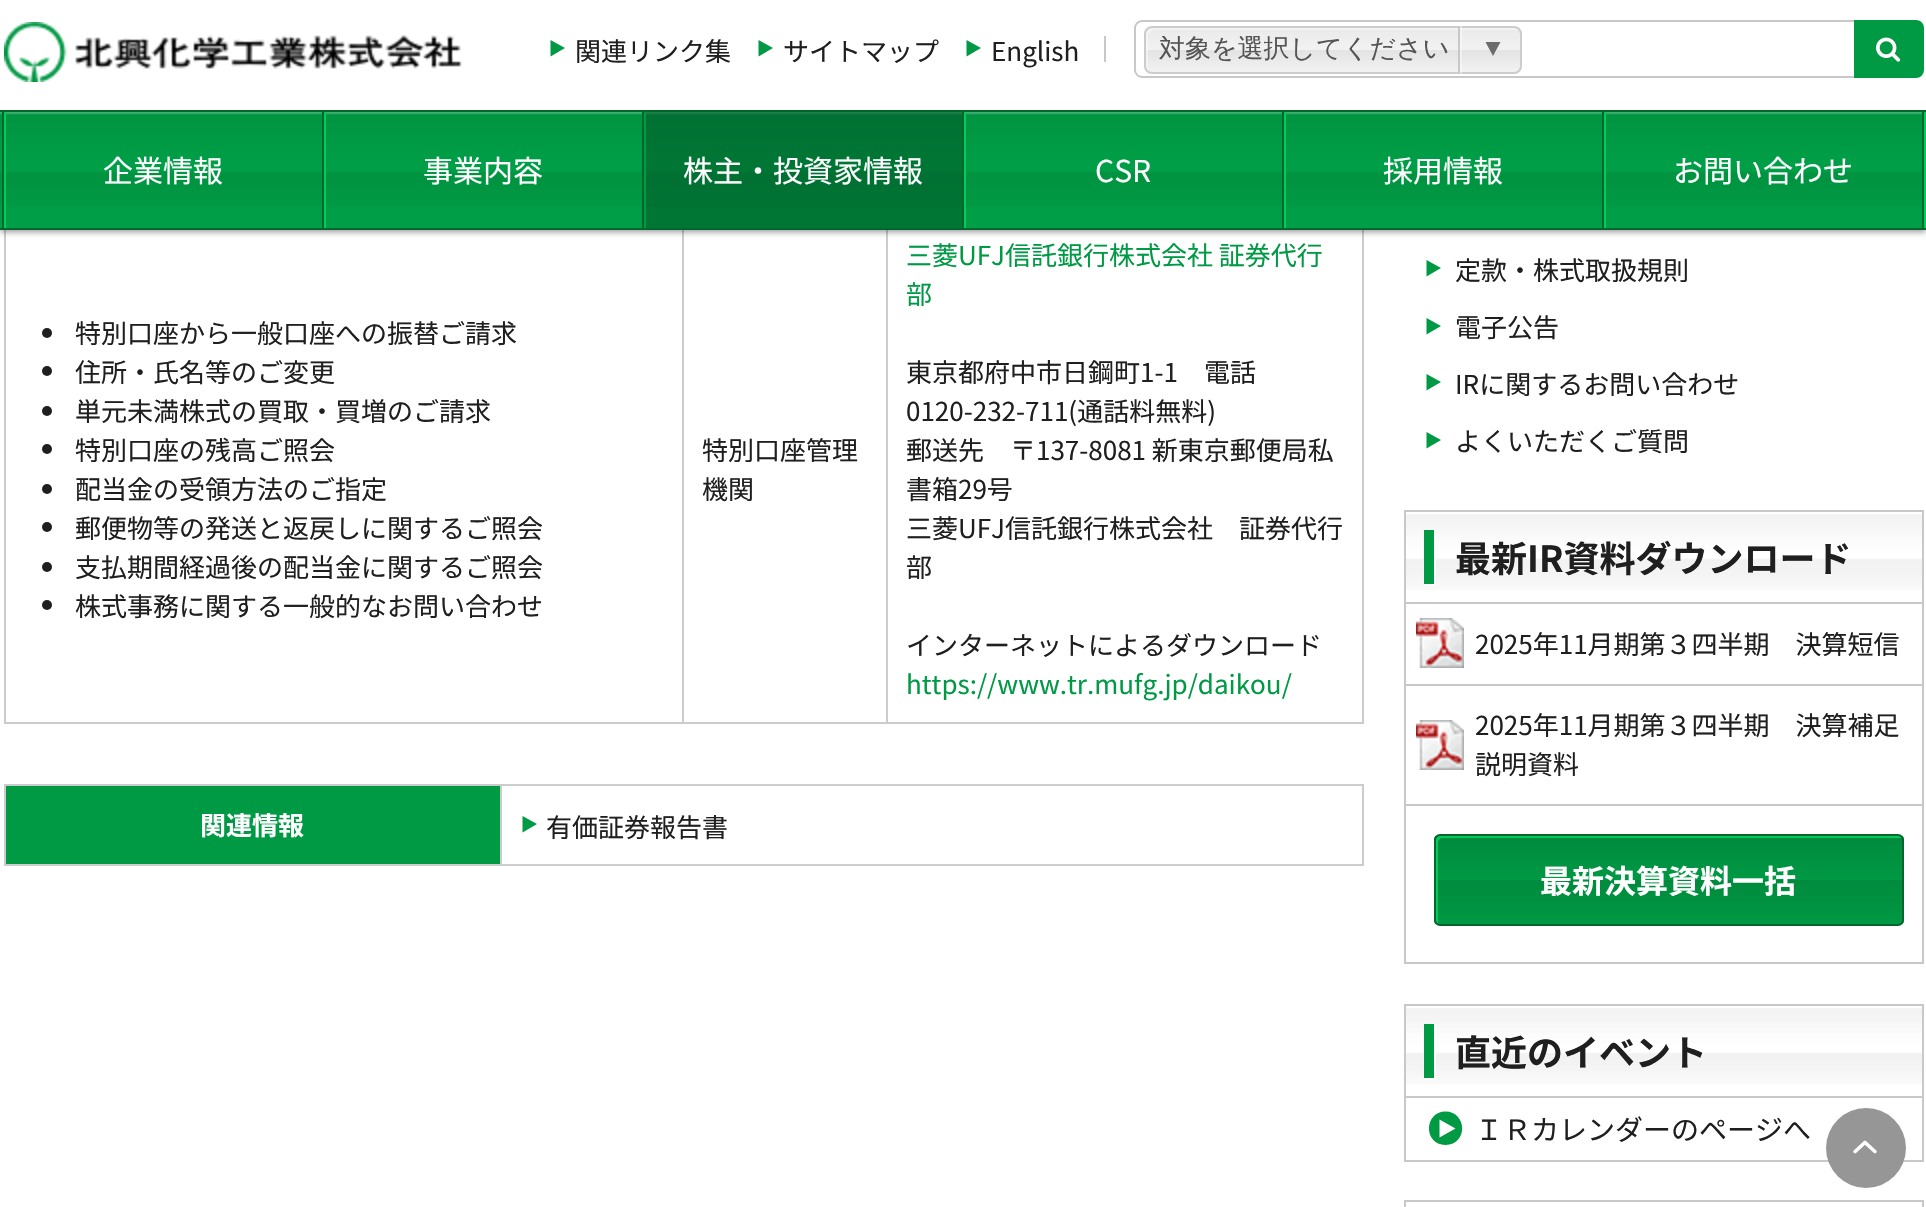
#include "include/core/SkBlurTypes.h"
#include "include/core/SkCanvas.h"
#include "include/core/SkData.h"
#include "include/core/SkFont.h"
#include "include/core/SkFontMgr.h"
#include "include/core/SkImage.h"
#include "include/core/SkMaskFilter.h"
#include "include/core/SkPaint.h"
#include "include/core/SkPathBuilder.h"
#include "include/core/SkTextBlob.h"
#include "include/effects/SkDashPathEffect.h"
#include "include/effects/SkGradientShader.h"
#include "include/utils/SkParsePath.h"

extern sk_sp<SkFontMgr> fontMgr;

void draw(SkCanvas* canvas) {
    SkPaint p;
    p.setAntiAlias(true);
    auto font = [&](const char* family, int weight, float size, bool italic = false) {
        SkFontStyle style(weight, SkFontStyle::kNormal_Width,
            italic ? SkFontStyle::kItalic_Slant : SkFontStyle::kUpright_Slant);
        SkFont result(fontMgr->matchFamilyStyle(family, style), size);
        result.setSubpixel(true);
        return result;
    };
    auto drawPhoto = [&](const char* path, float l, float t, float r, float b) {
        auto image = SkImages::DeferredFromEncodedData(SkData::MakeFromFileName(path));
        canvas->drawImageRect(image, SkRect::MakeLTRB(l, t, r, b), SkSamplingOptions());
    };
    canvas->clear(0xFFFFFFFF);
    {
        const struct { float l, t, r, b; SkColor color; } items[] = {
            {1362, 230, 1364, 724, 0xFFCCCCCC},
            {886, 722, 1364, 724, 0xFFCCCCCC},
            {886, 230, 888, 724, 0xFFCCCCCC},
            {682, 722, 888, 724, 0xFFCCCCCC},
            {682, 230, 684, 724, 0xFFCCCCCC},
            {4, 722, 684, 724, 0xFFCCCCCC},
            {4, 230, 6, 724, 0xFFCCCCCC},
        };
        for (auto [l, t, r, b, color] : items) {
            p.setColor(color);
            canvas->drawRect(SkRect::MakeLTRB(l, t, r, b), p);
        }
    }
    p.setColor(0x66000000);
    p.setMaskFilter(SkMaskFilter::MakeBlur(kNormal_SkBlurStyle, 3));
    canvas->drawRect(SkRect::MakeLTRB(0, 2, 1926, 232), p);
    p.setMaskFilter(nullptr);
    p.setColor(0xFFFFFFFF);
    canvas->drawRect(SkRect::MakeLTRB(0, 0, 1926, 110), p);
    drawPhoto("media/1.png", 4, 22, 462, 82);
    p.setColor(0xFF009944);
    canvas->drawPath(SkPathBuilder().moveTo(550.5f, 56.5f).lineTo(550.5f, 40).lineTo(565, 48).close().detach(), p);
    auto font1 = font("Noto Sans CJK JP", 400, 26);
    p.setColor(0xFF1F1F1F);
    canvas->drawString("関連リンク集", 575, 61, font1, p);
    p.setColor(0xFF009944);
    canvas->drawPath(SkPathBuilder().moveTo(758.5f, 56.5f).lineTo(758.5f, 40).lineTo(773, 48).close().detach(), p);
    p.setColor(0xFF1F1F1F);
    canvas->drawString("サイトマップ", 783, 61, font1, p);
    p.setColor(0xFF009944);
    canvas->drawPath(SkPathBuilder().moveTo(966.5f, 56.5f).lineTo(966.5f, 40).lineTo(981, 48).close().detach(), p);
    p.setColor(0xFF1F1F1F);
    canvas->drawString("English", 991, 61, font1, p);
    p.setColor(0xFFC8C8C8);
    canvas->drawRect(SkRect::MakeLTRB(1104, 36, 1106, 62), p);
    canvas->drawPath(SkPathBuilder(SkPathFillType::kEvenOdd).moveTo(1142, 20).lineTo(1854, 20).lineTo(1854, 78).lineTo(1142, 78).cubicTo(1138, 78, 1134, 74, 1134, 70).lineTo(1134, 28).cubicTo(1134, 24, 1138, 20, 1142, 20).close().moveTo(1142, 22).lineTo(1854, 22).lineTo(1854, 76).lineTo(1142, 76).cubicTo(1139, 76, 1136, 73, 1136, 70).lineTo(1136, 28).cubicTo(1136, 25, 1139, 22, 1142, 22).close().detach(), p);
    p.setColor(0xFF009944);
    canvas->drawPath(SkPathBuilder().moveTo(1855, 21).lineTo(1916, 21).cubicTo(1920, 21, 1923, 24, 1923, 28).lineTo(1923, 70).cubicTo(1923, 74, 1920, 77, 1916, 77).lineTo(1855, 77).close().detach(), p);
    p.setStyle(SkPaint::kStroke_Style);
    p.setStrokeWidth(2);
    canvas->drawPath(SkPathBuilder().moveTo(1855, 21).lineTo(1916, 21).cubicTo(1920, 21, 1923, 24, 1923, 28).lineTo(1923, 70).cubicTo(1923, 74, 1920, 77, 1916, 77).lineTo(1855, 77).close().detach(), p);
    drawPhoto("media/2.png", 1876, 37, 1901, 62);
    canvas->save();
    canvas->clipPath(SkPathBuilder().moveTo(1152, 26).lineTo(1514, 26).cubicTo(1518.5f, 26, 1522, 29.5f, 1522, 34).lineTo(1522, 66).cubicTo(1522, 70.5f, 1518.5f, 74, 1514, 74).lineTo(1152, 74).cubicTo(1147.5f, 74, 1144, 70.5f, 1144, 66).lineTo(1144, 34).cubicTo(1144, 29.5f, 1147.5f, 26, 1152, 26).close().detach(), true);
    p.setStyle(SkPaint::kFill_Style);
    {
        const SkColor colors[] = {0xFFEAEAEA, 0xFFF2F2F2, 0xFFE3E3E3, 0xFFF2F2F2};
        const float stops[] = {0, 0.5f, 0.5f, 1};
        const SkPoint ends[] = {{1333, 28}, {1333, 72}};
        p.setShader(SkGradientShader::MakeLinear(ends, colors, stops, 4, SkTileMode::kClamp));
        p.setAlpha(255);
    }
    canvas->drawRect(SkRect::MakeLTRB(1144, 28, 1522, 72), p);
    canvas->restore();
    p.setShader(nullptr);
    p.setColor(0x66FFFFFF);
    canvas->drawPath(SkPathBuilder().moveTo(1154, 30).lineTo(1516, 30).cubicTo(1517, 30, 1518, 30, 1519, 31).cubicTo(1518, 29, 1516, 28, 1514, 28).lineTo(1152, 28).cubicTo(1149, 28, 1146, 31, 1146, 34).lineTo(1146, 66).cubicTo(1146, 68, 1147, 70, 1149, 71).cubicTo(1148, 70, 1148, 69, 1148, 68).lineTo(1148, 36).cubicTo(1148, 33, 1151, 30, 1154, 30).close().detach(), p);
    p.setStyle(SkPaint::kStroke_Style);
    p.setColor(0xFFCCCCCC);
    canvas->drawRoundRect(SkRect::MakeLTRB(1145, 27, 1521, 73), 7, 7, p);
    canvas->save();
    canvas->clipRect(SkRect::MakeLTRB(1158, 36, 1450, 64));
    auto font2 = font("WenQuanYi Zen Hei", 500, 26);
    p.setStyle(SkPaint::kFill_Style);
    p.setColor(0xFF555555);
    canvas->drawString("対象を選択してください", 1159, 57, font2, p);
    canvas->restore();
    p.setColor(0x66FFFFFF);
    canvas->drawRect(SkRect::MakeLTRB(1460, 26, 1462, 74), p);
    p.setColor(0xFFC8C8C8);
    canvas->drawRect(SkRect::MakeLTRB(1458, 26, 1460, 74), p);
    p.setColor(0xFF6C6C6C);
    canvas->drawPath(SkPathBuilder().moveTo(1500.5f, 42).lineTo(1485.5f, 42).lineTo(1493, 56).close().detach(), p);
    p.setColor(0xFF009E47);
    canvas->drawRect(SkRect::MakeLTRB(0, 207, 1922, 228), p);
    drawPhoto("media/3.png", 0, 112, 1922, 207);
    {
        const struct { float l, t, r, b; SkColor color; } items[] = {
            {0, 110, 1926, 112, 0xFF00662D},
            {0, 228, 1926, 230, 0xFF00662D},
            {1924, 112, 1926, 228, 0xFF00CC5B},
            {2, 112, 4, 228, 0xFF00662D},
            {322, 112, 324, 228, 0xFF00662D},
            {4, 112, 6, 228, 0xFF00CC5B},
        };
        for (auto [l, t, r, b, color] : items) {
            p.setColor(color);
            canvas->drawRect(SkRect::MakeLTRB(l, t, r, b), p);
        }
    }
    auto font3 = font("Noto Sans CJK JP", 400, 30);
    p.setColor(0xFFFFFFFF);
    canvas->drawString("企業情報", 103, 182, font3, p);
    p.setColor(0xFF00662D);
    canvas->drawRect(SkRect::MakeLTRB(642, 112, 644, 228), p);
    p.setColor(0xFF00CC5B);
    canvas->drawRect(SkRect::MakeLTRB(324, 112, 326, 228), p);
    p.setColor(0xFFFFFFFF);
    canvas->drawString("事業内容", 423, 182, font3, p);
    {
        const struct { float l, t, r, b; SkColor color; } items[] = {
            {646, 112, 962, 228, 0x80004D22},
            {962, 112, 964, 228, 0xFF00662D},
            {644, 112, 646, 228, 0xFF009944},
        };
        for (auto [l, t, r, b, color] : items) {
            p.setColor(color);
            canvas->drawRect(SkRect::MakeLTRB(l, t, r, b), p);
        }
    }
    p.setColor(0xFFFFFFFF);
    canvas->drawString("株主・投資家情報", 683, 182, font3, p);
    p.setColor(0xFF00662D);
    canvas->drawRect(SkRect::MakeLTRB(1282, 112, 1284, 228), p);
    p.setColor(0xFF00CC5B);
    canvas->drawRect(SkRect::MakeLTRB(964, 112, 966, 228), p);
    p.setColor(0xFFFFFFFF);
    canvas->drawString("CSR", 1095, 182, font3, p);
    p.setColor(0xFF00662D);
    canvas->drawRect(SkRect::MakeLTRB(1602, 112, 1604, 228), p);
    p.setColor(0xFF00CC5B);
    canvas->drawRect(SkRect::MakeLTRB(1284, 112, 1286, 228), p);
    p.setColor(0xFFFFFFFF);
    canvas->drawString("採用情報", 1383, 182, font3, p);
    p.setColor(0xFF00662D);
    canvas->drawRect(SkRect::MakeLTRB(1922, 112, 1924, 228), p);
    p.setColor(0xFF00CC5B);
    canvas->drawRect(SkRect::MakeLTRB(1604, 112, 1606, 228), p);
    p.setColor(0xFFFFFFFF);
    canvas->drawString("お問い合わせ", 1673, 182, font3, p);
    p.setColor(0xFF1F1F1F);
    canvas->drawCircle(47, 333, 5, p);
    canvas->drawString("特別口座から一般口座への振替ご請求", 75, 343, font1, p);
    canvas->drawCircle(47, 371, 5, p);
    canvas->drawString("住所・氏名等のご変更", 75, 382, font1, p);
    canvas->drawCircle(47, 411, 5, p);
    canvas->drawString("単元未満株式の買取・買増のご請求", 75, 421, font1, p);
    canvas->drawCircle(47, 449, 5, p);
    canvas->drawString("特別口座の残高ご照会", 75, 460, font1, p);
    canvas->drawCircle(47, 489, 5, p);
    canvas->drawString("配当金の受領方法のご指定", 75, 499, font1, p);
    canvas->drawCircle(47, 527, 5, p);
    canvas->drawString("郵便物等の発送と返戻しに関するご照会", 75, 538, font1, p);
    canvas->drawCircle(47, 567, 5, p);
    canvas->drawString("支払期間経過後の配当金に関するご照会", 75, 577, font1, p);
    canvas->drawCircle(47, 605, 5, p);
    {
        const struct { const char* s; float x, y; } items[] = {
            {"株式事務に関する一般的なお問い合わせ", 75, 616},
            {"特別口座管理", 702, 460},
            {"機関", 702, 499},
        };
        for (auto [s, x, y] : items) {
            canvas->drawString(s, x, y, font1, p);
        }
    }
    p.setColor(0xFF009944);
    canvas->drawString("三菱UFJ信託銀行株式会社 証券代行", 906, 265, font1, p);
    canvas->drawString("部", 906, 304, font1, p);
    p.setColor(0xFF1F1F1F);
    {
        const struct { const char* s; float x, y; } items[] = {
            {"東京都府中市日鋼町1-1　電話", 906, 382},
            {"0120-232-711(通話料無料)", 906, 421},
            {"郵送先　〒137-8081 新東京郵便局私", 906, 460},
            {"書箱29号", 906, 499},
            {"三菱UFJ信託銀行株式会社　証券代行", 906, 538},
            {"部", 906, 577},
            {"インターネットによるダウンロード", 906, 655},
        };
        for (auto [s, x, y] : items) {
            canvas->drawString(s, x, y, font1, p);
        }
    }
    p.setColor(0xFF009944);
    canvas->drawString("https://www.tr.mufg.jp/daikou/", 906, 694, font1, p);
    {
        const struct { float l, t, r, b; SkColor color; } items[] = {
            {6, 786, 500, 864, 0xFF009944},
            {500, 784, 1364, 786, 0xFFCCCCCC},
            {1362, 784, 1364, 866, 0xFFCCCCCC},
            {500, 864, 1364, 866, 0xFFCCCCCC},
            {500, 784, 502, 866, 0xFFCCCCCC},
            {4, 784, 502, 786, 0xFFCCCCCC},
            {4, 864, 502, 866, 0xFFCCCCCC},
            {4, 784, 6, 866, 0xFFCCCCCC},
        };
        for (auto [l, t, r, b, color] : items) {
            p.setColor(color);
            canvas->drawRect(SkRect::MakeLTRB(l, t, r, b), p);
        }
    }
    auto font4 = font("Noto Sans CJK JP", 700, 26);
    p.setColor(0xFFFFFFFF);
    canvas->drawString("関連情報", 200, 835, font4, p);
    p.setColor(0xFF009944);
    canvas->drawPath(SkPathBuilder().moveTo(522.5f, 832.5f).lineTo(522.5f, 816).lineTo(537, 824).close().detach(), p);
    p.setColor(0xFF1F1F1F);
    canvas->drawString("有価証券報告書", 546, 837, font1, p);
    p.setColor(0xFF009944);
    canvas->drawPath(SkPathBuilder().moveTo(1426.5f, 276.5f).lineTo(1426.5f, 260).lineTo(1441, 268).close().detach(), p);
    p.setColor(0xFF1F1F1F);
    canvas->drawString("定款・株式取扱規則", 1455, 280, font1, p);
    p.setColor(0xFF009944);
    canvas->drawPath(SkPathBuilder().moveTo(1426.5f, 334.5f).lineTo(1426.5f, 318).lineTo(1441, 326).close().detach(), p);
    p.setColor(0xFF1F1F1F);
    canvas->drawString("電子公告", 1455, 337, font1, p);
    p.setColor(0xFF009944);
    canvas->drawPath(SkPathBuilder().moveTo(1426.5f, 390.5f).lineTo(1426.5f, 374).lineTo(1441, 382).close().detach(), p);
    p.setColor(0xFF1F1F1F);
    canvas->drawString("IRに関するお問い合わせ", 1455, 394, font1, p);
    p.setColor(0xFF009944);
    canvas->drawPath(SkPathBuilder().moveTo(1426.5f, 448.5f).lineTo(1426.5f, 432).lineTo(1441, 440).close().detach(), p);
    p.setColor(0xFF1F1F1F);
    canvas->drawString("よくいただくご質問", 1455, 451, font1, p);
    drawPhoto("media/4.png", 1406, 514, 1922, 590);
    p.setStyle(SkPaint::kStroke_Style);
    p.setColor(0xFFC8C8C8);
    canvas->drawRect(SkRect::MakeLTRB(1405, 511, 1923, 603), p);
    p.setStyle(SkPaint::kFill_Style);
    p.setColor(0xFFFFFFFF);
    canvas->drawPath(SkPathBuilder().moveTo(1426, 584).lineTo(1426, 586).lineTo(1436, 586).lineTo(1436, 532).lineTo(1434, 532).lineTo(1434, 584).close().detach(), p);
    p.setColor(0xFF009944);
    canvas->drawRect(SkRect::MakeLTRB(1424, 530, 1434, 584), p);
    auto font5 = font("Noto Sans CJK JP", 700, 36);
    p.setColor(0xFF1F1F1F);
    canvas->drawString("最新IR資料ダウンロード", 1455, 572, font5, p);
    p.setStyle(SkPaint::kStroke_Style);
    p.setColor(0xFFC8C8C8);
    canvas->drawRect(SkRect::MakeLTRB(1405, 603, 1923, 685), p);
    drawPhoto("media/5.png", 1416, 618, 1464, 668);
    p.setStyle(SkPaint::kFill_Style);
    p.setColor(0xFF1F1F1F);
    canvas->drawString("2025年11月期第３四半期　決算短信", 1475, 654, font1, p);
    p.setStyle(SkPaint::kStroke_Style);
    p.setColor(0xFFC8C8C8);
    canvas->drawRect(SkRect::MakeLTRB(1405, 805, 1923, 963), p);
    canvas->drawRect(SkRect::MakeLTRB(1405, 685, 1923, 805), p);
    drawPhoto("media/5.png", 1416, 720, 1464, 770);
    p.setStyle(SkPaint::kFill_Style);
    p.setColor(0xFF1F1F1F);
    canvas->drawString("2025年11月期第３四半期　決算補足", 1475, 735, font1, p);
    canvas->drawString("説明資料", 1475, 774, font1, p);
    canvas->save();
    canvas->clipPath(SkPathBuilder().moveTo(1440, 834).lineTo(1898, 834).cubicTo(1901.5f, 834, 1904, 836.5f, 1904, 840).lineTo(1904, 920).cubicTo(1904, 923.5f, 1901.5f, 926, 1898, 926).lineTo(1440, 926).cubicTo(1436.5f, 926, 1434, 923.5f, 1434, 920).lineTo(1434, 840).cubicTo(1434, 836.5f, 1436.5f, 834, 1440, 834).close().detach(), true);
    {
        const SkColor colors[] = {0xFF008A3D, 0xFF009944, 0xFF008A3D, 0xFF009944};
        const float stops[] = {0, 0.5f, 0.5f, 1};
        const SkPoint ends[] = {{1669, 836}, {1669, 924}};
        p.setShader(SkGradientShader::MakeLinear(ends, colors, stops, 4, SkTileMode::kClamp));
        p.setAlpha(255);
    }
    canvas->drawRect(SkRect::MakeLTRB(1434, 836, 1904, 924), p);
    canvas->restore();
    p.setShader(nullptr);
    p.setColor(0xFF00CC5B);
    canvas->drawPath(SkPathBuilder().moveTo(1442, 838).lineTo(1900, 838).lineTo(1902, 838).cubicTo(1901, 837, 1900, 836, 1898, 836).lineTo(1440, 836).cubicTo(1438, 836, 1436, 838, 1436, 840).lineTo(1436, 920).cubicTo(1436, 922, 1437, 923, 1438, 924).lineTo(1438, 922).lineTo(1438, 842).cubicTo(1438, 840, 1440, 838, 1442, 838).close().detach(), p);
    p.setStyle(SkPaint::kStroke_Style);
    p.setColor(0xFF00662D);
    canvas->drawRoundRect(SkRect::MakeLTRB(1435, 835, 1903, 925), 5, 5, p);
    auto font6 = font("Noto Sans CJK JP", 700, 32);
    p.setStyle(SkPaint::kFill_Style);
    p.setColor(0xFFFFFFFF);
    canvas->drawString("最新決算資料一括", 1540, 893, font6, p);
    drawPhoto("media/4.png", 1406, 1008, 1922, 1084);
    p.setStyle(SkPaint::kStroke_Style);
    p.setColor(0xFFC8C8C8);
    canvas->drawRect(SkRect::MakeLTRB(1405, 1005, 1923, 1097), p);
    p.setStyle(SkPaint::kFill_Style);
    p.setColor(0xFFFFFFFF);
    canvas->drawPath(SkPathBuilder().moveTo(1426, 1078).lineTo(1426, 1080).lineTo(1436, 1080).lineTo(1436, 1026).lineTo(1434, 1026).lineTo(1434, 1078).close().detach(), p);
    p.setColor(0xFF009944);
    canvas->drawRect(SkRect::MakeLTRB(1424, 1024, 1434, 1078), p);
    p.setColor(0xFF1F1F1F);
    canvas->drawString("直近のイベント", 1455, 1066, font5, p);
    p.setStyle(SkPaint::kStroke_Style);
    p.setColor(0xFFC8C8C8);
    canvas->drawRect(SkRect::MakeLTRB(1405, 1097, 1923, 1161), p);
    p.setStyle(SkPaint::kFill_Style);
    p.setColor(0xFF009944);
    canvas->drawPath(SkPathBuilder().moveTo(1445.5f, 1145).cubicTo(1468.5f, 1144.5f, 1467, 1111.5f, 1445.5f, 1111.5f).cubicTo(1424, 1111.5f, 1423, 1144.5f, 1445.5f, 1145).close().moveTo(1439.5f, 1137.5f).lineTo(1439.5f, 1119.5f).lineTo(1455.5f, 1128.5f).close().detach(), p);
    auto font7 = font("Noto Sans CJK JP", 400, 28);
    p.setColor(0xFF1F1F1F);
    canvas->drawString("ＩＲカレンダーのページへ", 1475, 1140, font7, p);
    p.setStyle(SkPaint::kStroke_Style);
    p.setColor(0xFFC8C8C8);
    canvas->drawRect(SkRect::MakeLTRB(1405, 1201, 1923, 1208), p);
    p.setStyle(SkPaint::kFill_Style);
    p.setColor(0xFF969696);
    canvas->drawCircle(1866, 1148, 40, p);
    drawPhoto("media/6.png", 1853, 1140, 1877, 1154);
}
